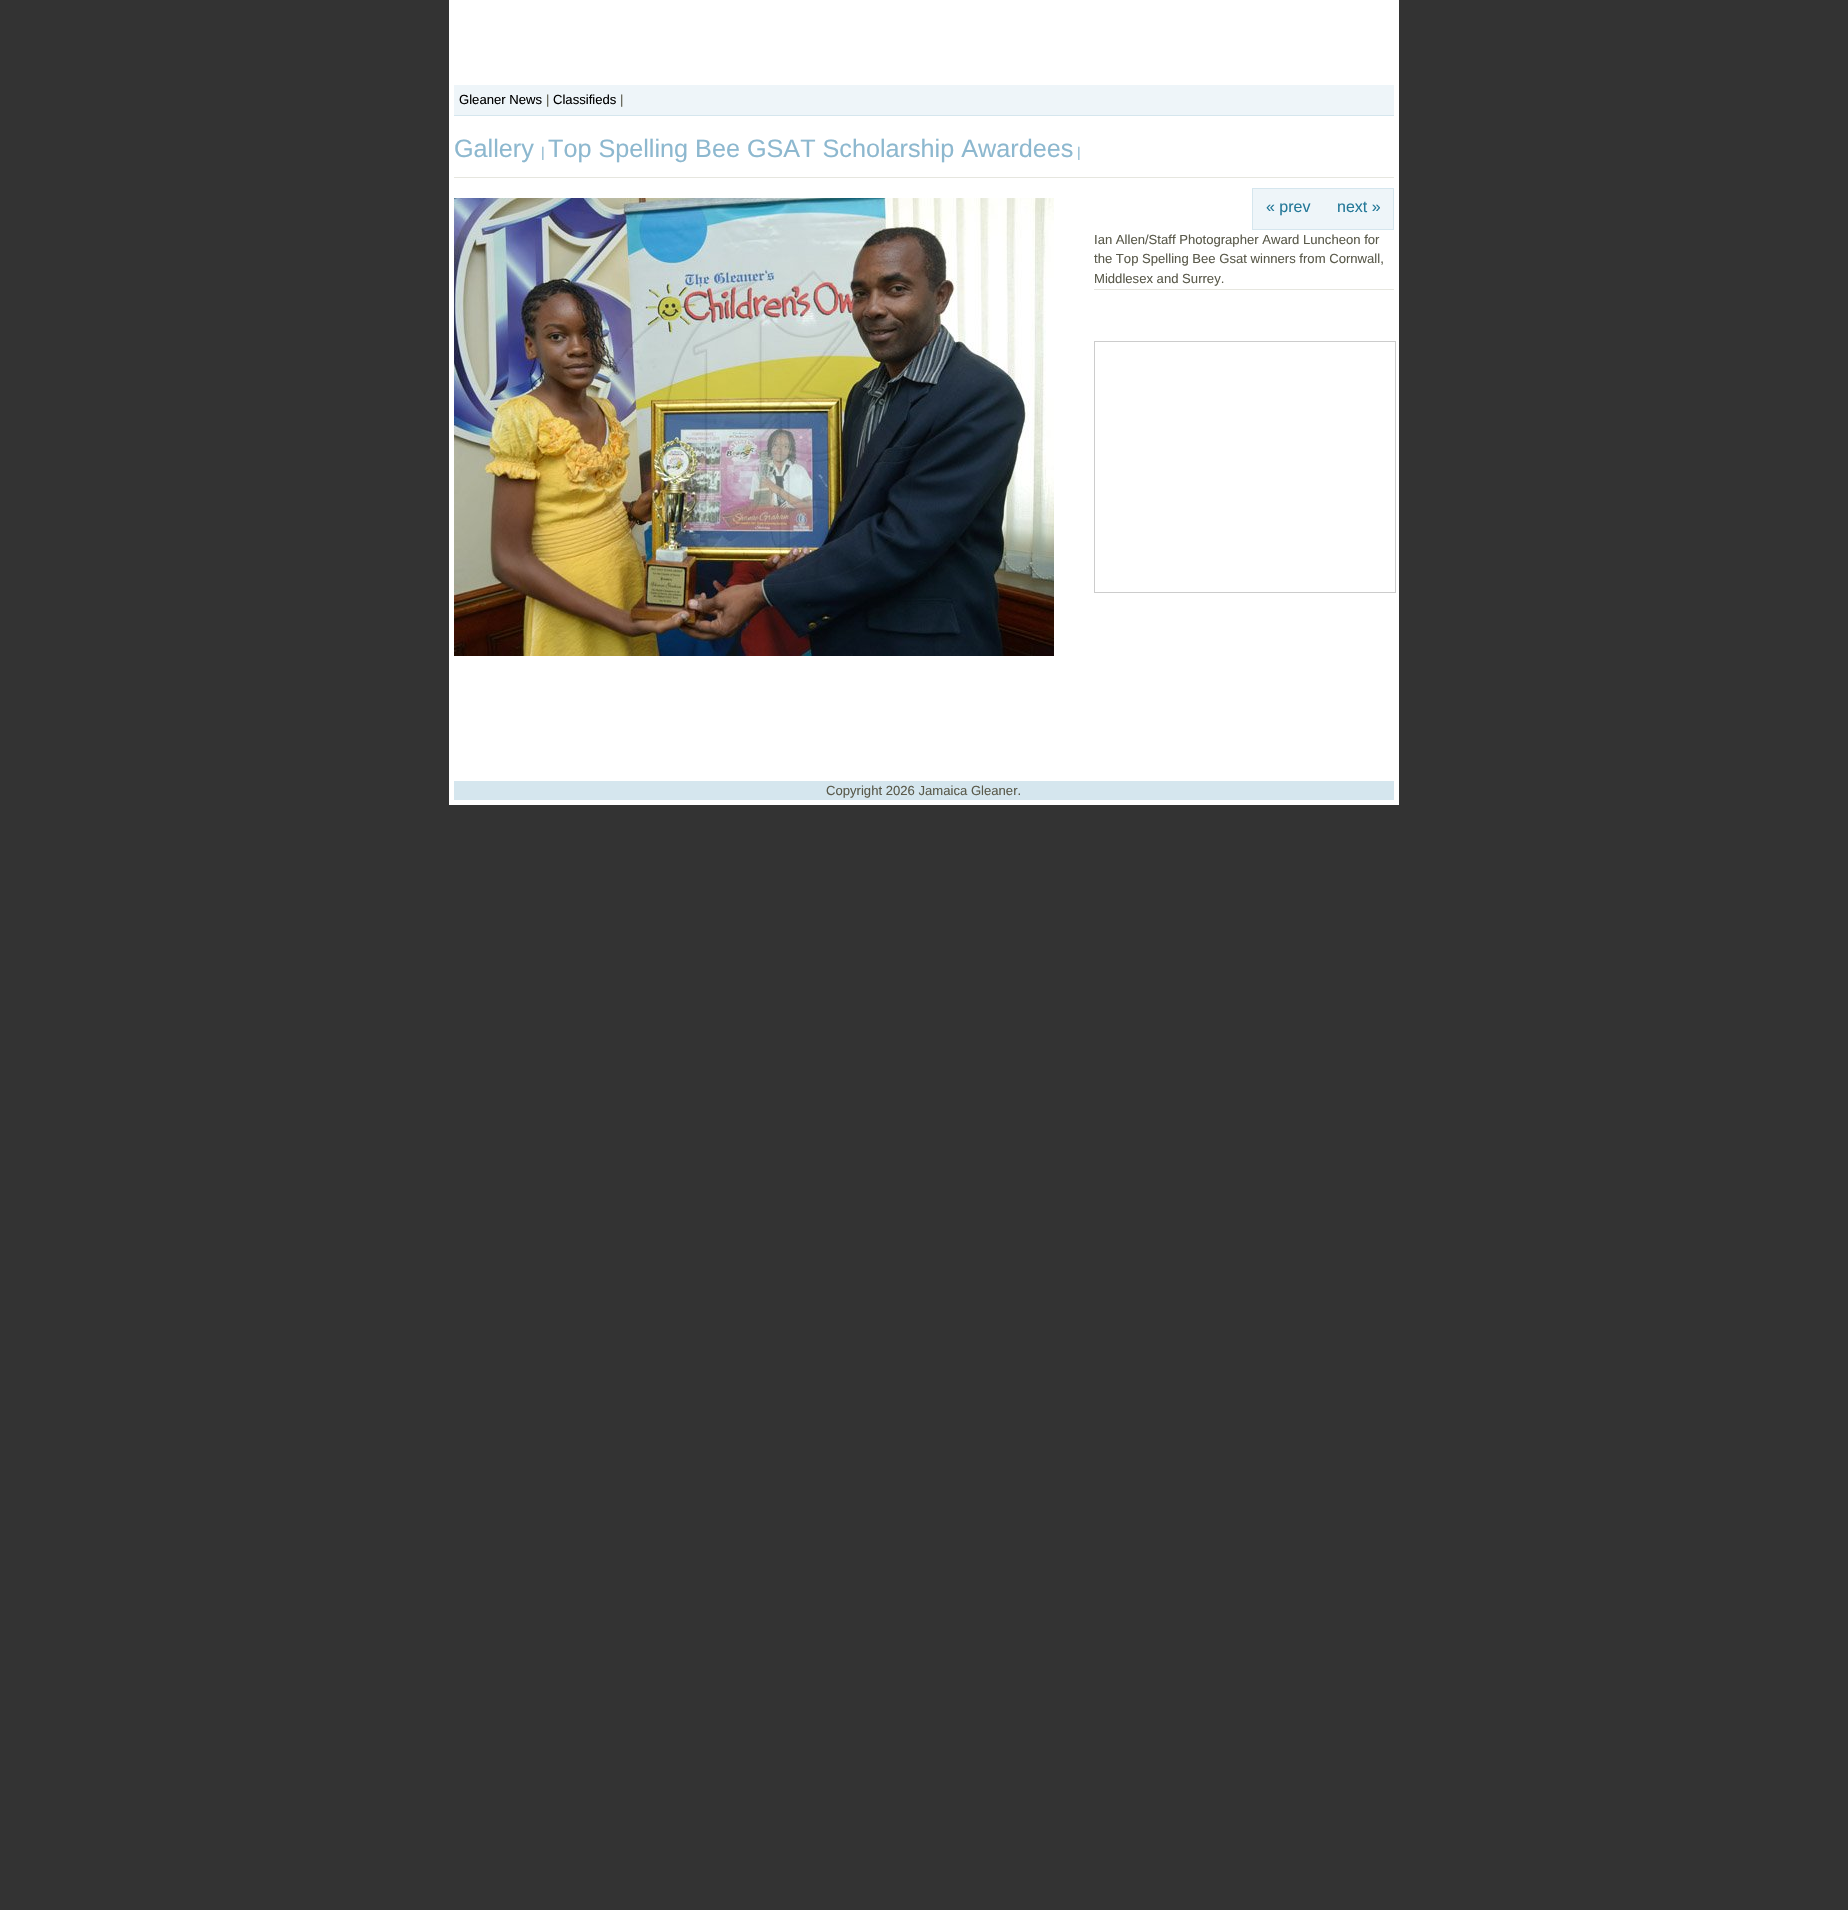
#include "include/core/SkBlurTypes.h"
#include "include/core/SkCanvas.h"
#include "include/core/SkData.h"
#include "include/core/SkFont.h"
#include "include/core/SkFontMgr.h"
#include "include/core/SkImage.h"
#include "include/core/SkMaskFilter.h"
#include "include/core/SkPaint.h"
#include "include/core/SkPathBuilder.h"
#include "include/core/SkTextBlob.h"
#include "include/effects/SkDashPathEffect.h"
#include "include/effects/SkGradientShader.h"
#include "include/utils/SkParsePath.h"

extern sk_sp<SkFontMgr> fontMgr;

void draw(SkCanvas* canvas) {
    SkPaint p;
    p.setAntiAlias(true);
    auto font = [&](const char* family, int weight, float size, bool italic = false) {
        SkFontStyle style(weight, SkFontStyle::kNormal_Width,
            italic ? SkFontStyle::kItalic_Slant : SkFontStyle::kUpright_Slant);
        SkFont result(fontMgr->matchFamilyStyle(family, style), size);
        result.setSubpixel(true);
        return result;
    };
    auto drawPhoto = [&](const char* path, float l, float t, float r, float b) {
        auto image = SkImages::DeferredFromEncodedData(SkData::MakeFromFileName(path));
        canvas->drawImageRect(image, SkRect::MakeLTRB(l, t, r, b), SkSamplingOptions());
    };
    canvas->clear(0xFF333333);
    {
        const struct { float l, t, r, b; SkColor color; } items[] = {
            {449, 0, 1399, 805, 0xFFFFFFFF},
            {454, 85, 1394, 115, 0xFFEEF5F9},
            {454, 115, 1394, 116, 0xFFD5E6EE},
        };
        for (auto [l, t, r, b, color] : items) {
            p.setColor(color);
            canvas->drawRect(SkRect::MakeLTRB(l, t, r, b), p);
        }
    }
    auto font1 = font("Liberation Sans", 400, 13.1f);
    p.setColor(0xFF000000);
    canvas->drawString("Gleaner News", 459, 104, font1, p);
    p.setColor(0xFF5A5A4B);
    canvas->drawString("|", 546, 104, font1, p);
    p.setColor(0xFF000000);
    canvas->drawString("Classifieds", 553, 104, font1, p);
    p.setColor(0xFF5A5A4B);
    canvas->drawString("|", 620, 104, font1, p);
    p.setColor(0xFFE6E6DF);
    canvas->drawRect(SkRect::MakeLTRB(454, 177, 1394, 178), p);
    auto font2 = font("Liberation Sans", 400, 25.2f);
    p.setColor(0xFF8DB8CF);
    canvas->drawString("Gallery", 454, 157, font2, p);
    auto font3 = font("Liberation Sans", 400, 14);
    canvas->drawString("|", 541, 157, font3, p);
    canvas->drawString("Top Spelling Bee GSAT Scholarship Awardees", 548, 157, font2, p);
    canvas->drawString("|", 1077, 157, font3, p);
    drawPhoto("media/1.png", 454, 198, 1054, 656);
    p.setColor(0xFFEEF5F9);
    canvas->drawRect(SkRect::MakeLTRB(1252.5f, 188.5f, 1393.5f, 229.5f), p);
    p.setStyle(SkPaint::kStroke_Style);
    p.setStrokeWidth(1);
    p.setColor(0xFFD5E6EE);
    canvas->drawRect(SkRect::MakeLTRB(1252.5f, 188.5f, 1393.5f, 229.5f), p);
    auto font4 = font("Liberation Sans", 400, 16);
    p.setStyle(SkPaint::kFill_Style);
    p.setColor(0xFF237898);
    canvas->drawString("« prev", 1266, 212, font4, p);
    canvas->drawString("next »", 1337, 212, font4, p);
    p.setColor(0xFF5A5A4B);
    {
        const struct { const char* s; float x, y; } items[] = {
            {"Ian Allen/Staff Photographer Award Luncheon for", 1094, 244},
            {"the Top Spelling Bee Gsat winners from Cornwall,", 1094, 263},
            {"Middlesex and Surrey.", 1094, 283},
        };
        for (auto [s, x, y] : items) {
            canvas->drawString(s, x, y, font1, p);
        }
    }
    p.setColor(0xFFE6E6DF);
    canvas->drawRect(SkRect::MakeLTRB(1094, 289, 1394, 290), p);
    p.setStyle(SkPaint::kStroke_Style);
    p.setColor(0xFFCCCCCC);
    canvas->drawRect(SkRect::MakeLTRB(1094.5f, 341.5f, 1395.5f, 592.5f), p);
    p.setStyle(SkPaint::kFill_Style);
    p.setColor(0xFFD5E6EE);
    canvas->drawRect(SkRect::MakeLTRB(454, 781, 1394, 800), p);
    p.setColor(0xFF5A5A4B);
    canvas->drawString("Copyright 2026 Jamaica Gleaner.", 826, 795, font1, p);
}
